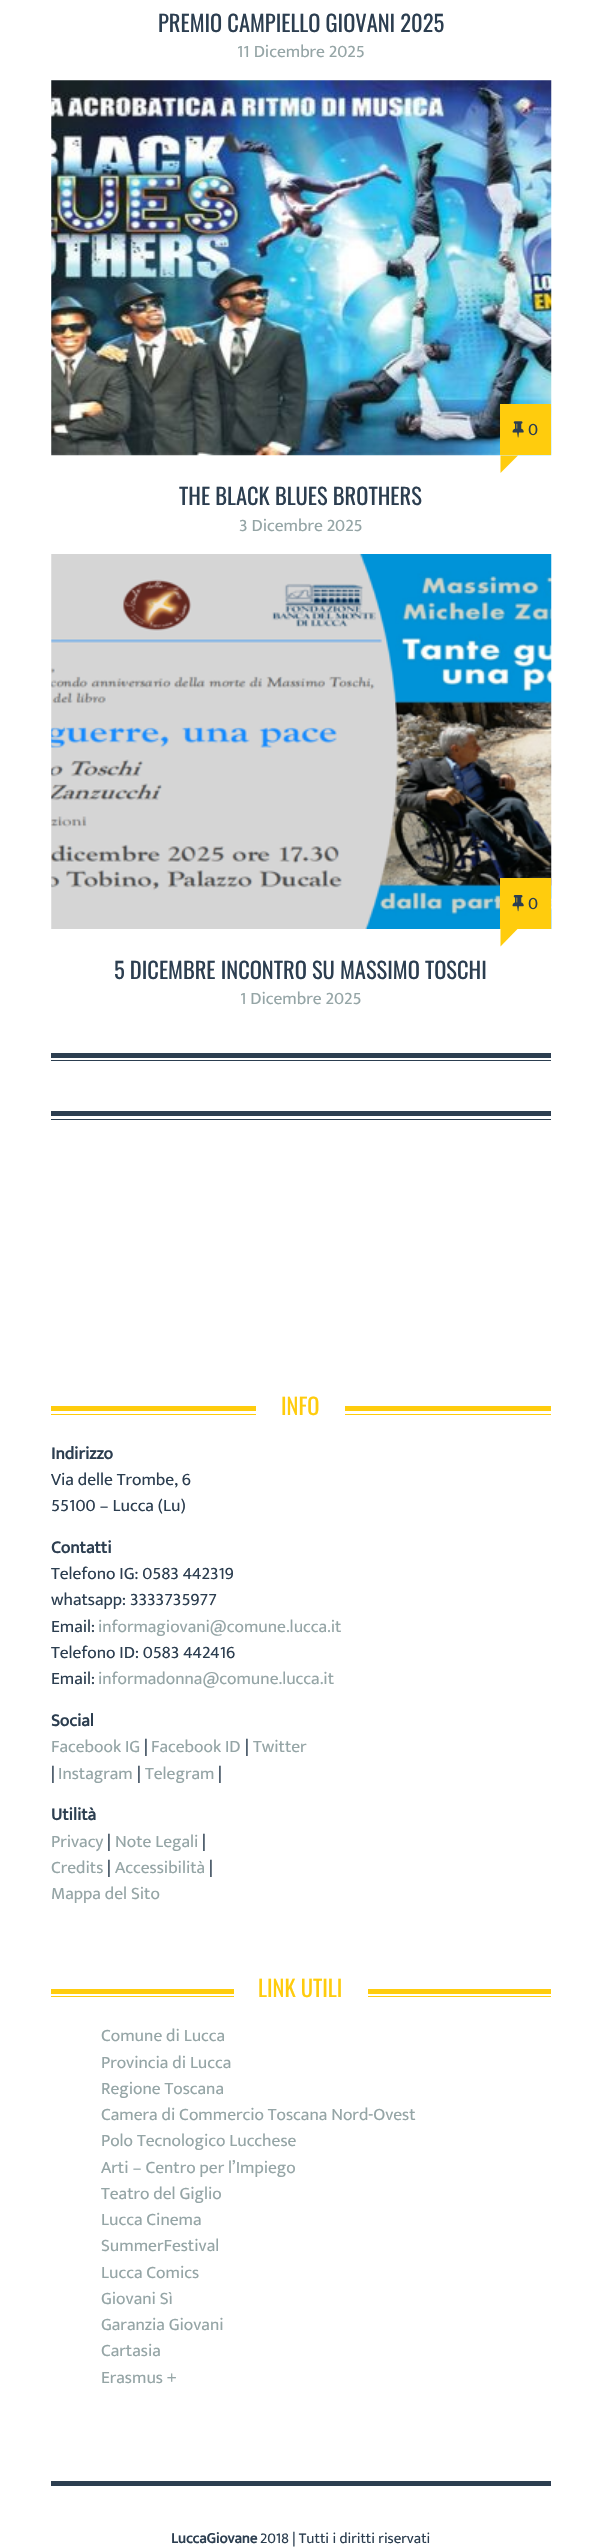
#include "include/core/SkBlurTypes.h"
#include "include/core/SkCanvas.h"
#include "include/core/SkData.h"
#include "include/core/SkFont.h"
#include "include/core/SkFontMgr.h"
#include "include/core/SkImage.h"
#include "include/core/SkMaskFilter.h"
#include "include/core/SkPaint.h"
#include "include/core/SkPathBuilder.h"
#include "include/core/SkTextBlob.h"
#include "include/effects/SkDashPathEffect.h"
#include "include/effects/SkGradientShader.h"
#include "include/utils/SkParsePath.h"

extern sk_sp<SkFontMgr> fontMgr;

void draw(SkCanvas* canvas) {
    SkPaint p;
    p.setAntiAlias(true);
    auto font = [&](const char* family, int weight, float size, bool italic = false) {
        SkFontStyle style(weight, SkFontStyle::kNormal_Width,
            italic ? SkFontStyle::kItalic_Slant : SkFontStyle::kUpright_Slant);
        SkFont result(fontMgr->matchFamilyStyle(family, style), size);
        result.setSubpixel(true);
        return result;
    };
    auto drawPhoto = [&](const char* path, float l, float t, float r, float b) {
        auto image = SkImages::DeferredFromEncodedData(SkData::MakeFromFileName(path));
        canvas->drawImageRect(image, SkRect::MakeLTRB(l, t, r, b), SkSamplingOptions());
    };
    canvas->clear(0xFFFFFFFF);
    p.setColor(0xFF2C3E50);
    canvas->drawRect(SkRect::MakeLTRB(51, 1111, 551, 1116), p);
    auto font1 = font("Oswald", 400, 22.5f);
    canvas->drawString("PREMIO CAMPIELLO GIOVANI 2025", 158, 32, font1, p);
    auto font2 = font("Ek Mukta", 400, 17.5f);
    p.setColor(0xFF95A5A6);
    canvas->drawString("11 Dicembre 2025", 237, 57, font2, p);
    drawPhoto("media/1.png", 51, 80, 552, 456);
    p.setColor(0xFFFFCC0D);
    canvas->drawRect(SkRect::MakeLTRB(500, 404, 551, 455), p);
    drawPhoto("media/2.png", 512, 421, 524, 438);
    p.setColor(0xFF2C3E50);
    canvas->drawString("0", 528, 435, font2, p);
    p.setColor(0xFFFFCC0D);
    canvas->drawPath(SkPathBuilder().moveTo(518, 455.5f).lineTo(500.5f, 473).lineTo(500.5f, 455.5f).close().detach(), p);
    p.setColor(0xFF2C3E50);
    canvas->drawString("THE BLACK BLUES BROTHERS", 179, 505, font1, p);
    p.setColor(0xFF95A5A6);
    canvas->drawString("3 Dicembre 2025", 239, 531, font2, p);
    drawPhoto("media/3.png", 51, 554, 552, 929);
    p.setColor(0xFFFFCC0D);
    canvas->drawRect(SkRect::MakeLTRB(500, 878, 551, 929), p);
    drawPhoto("media/4.png", 512, 895, 524, 912);
    p.setColor(0xFF2C3E50);
    canvas->drawString("0", 528, 909, font2, p);
    p.setColor(0xFFFFCC0D);
    canvas->drawPath(SkPathBuilder().moveTo(518, 928.5f).lineTo(500.5f, 946.5f).lineTo(500.5f, 928.5f).close().detach(), p);
    p.setColor(0xFF2C3E50);
    canvas->drawString("5 DICEMBRE INCONTRO SU MASSIMO TOSCHI", 114, 979, font1, p);
    p.setColor(0xFF95A5A6);
    canvas->drawString("1 Dicembre 2025", 240, 1004, font2, p);
    {
        const struct { float l, t, r, b; SkColor color; } items[] = {
            {51, 1053, 551, 1058, 0xFF2C3E50},
            {51, 1060, 551, 1061, 0xFF2C3E50},
            {51, 1119, 551, 1120, 0xFF2C3E50},
            {51, 2481, 551, 2486, 0xFF2C3E50},
            {51, 1406, 551, 1411, 0xFFFFCC0D},
            {51, 1414, 551, 1415, 0xFFFFCC0D},
            {256, 1406, 345, 1415, 0xFFFFFFFF},
        };
        for (auto [l, t, r, b, color] : items) {
            p.setColor(color);
            canvas->drawRect(SkRect::MakeLTRB(l, t, r, b), p);
        }
    }
    p.setColor(0xFFFFCC0D);
    canvas->drawString("INFO", 281, 1415, font1, p);
    auto font3 = font("Ek Mukta", 700, 17.5f);
    p.setColor(0xFF2C3E50);
    canvas->drawString("Indirizzo", 51, 1459, font3, p);
    canvas->drawString("Via delle Trombe, 6", 51, 1485, font2, p);
    canvas->drawString("55100 – Lucca (Lu)", 51, 1511, font2, p);
    canvas->drawString("Contatti", 51, 1553, font3, p);
    {
        const struct { const char* s; float x, y; } items[] = {
            {"Telefono IG: 0583 442319", 51, 1579},
            {"whatsapp: 3333735977", 51, 1605},
            {"Email:", 51, 1632},
        };
        for (auto [s, x, y] : items) {
            canvas->drawString(s, x, y, font2, p);
        }
    }
    p.setColor(0xFF95A5A6);
    canvas->drawString("informagiovani@comune.lucca.it", 98, 1632, font2, p);
    p.setColor(0xFF2C3E50);
    canvas->drawString("Telefono ID: 0583 442416", 51, 1658, font2, p);
    canvas->drawString("Email:", 51, 1684, font2, p);
    p.setColor(0xFF95A5A6);
    canvas->drawString("informadonna@comune.lucca.it", 98, 1684, font2, p);
    p.setColor(0xFF2C3E50);
    canvas->drawString("Social", 51, 1726, font3, p);
    p.setColor(0xFF95A5A6);
    canvas->drawString("Facebook IG", 51, 1752, font2, p);
    p.setColor(0xFF2C3E50);
    canvas->drawString("|", 144, 1752, font2, p);
    p.setColor(0xFF95A5A6);
    canvas->drawString("Facebook ID", 151, 1752, font2, p);
    p.setColor(0xFF2C3E50);
    canvas->drawString("|", 245, 1752, font2, p);
    p.setColor(0xFF95A5A6);
    canvas->drawString("Twitter", 253, 1752, font2, p);
    p.setColor(0xFF2C3E50);
    canvas->drawString("|", 51, 1779, font2, p);
    p.setColor(0xFF95A5A6);
    canvas->drawString("Instagram", 58, 1779, font2, p);
    p.setColor(0xFF2C3E50);
    canvas->drawString("|", 137, 1779, font2, p);
    p.setColor(0xFF95A5A6);
    canvas->drawString("Telegram", 145, 1779, font2, p);
    p.setColor(0xFF2C3E50);
    canvas->drawString("|", 218, 1779, font2, p);
    canvas->drawString("Utilità", 51, 1820, font3, p);
    p.setColor(0xFF95A5A6);
    canvas->drawString("Privacy", 51, 1847, font2, p);
    p.setColor(0xFF2C3E50);
    canvas->drawString("|", 107, 1847, font2, p);
    p.setColor(0xFF95A5A6);
    canvas->drawString("Note Legali", 115, 1847, font2, p);
    p.setColor(0xFF2C3E50);
    canvas->drawString("|", 202, 1847, font2, p);
    p.setColor(0xFF95A5A6);
    canvas->drawString("Credits", 51, 1873, font2, p);
    p.setColor(0xFF2C3E50);
    canvas->drawString("|", 107, 1873, font2, p);
    p.setColor(0xFF95A5A6);
    canvas->drawString("Accessibilità", 115, 1873, font2, p);
    p.setColor(0xFF2C3E50);
    canvas->drawString("|", 209, 1873, font2, p);
    p.setColor(0xFF95A5A6);
    canvas->drawString("Mappa del Sito", 51, 1899, font2, p);
    {
        const struct { float l, t, r, b; SkColor color; } items[] = {
            {51, 1989, 551, 1994, 0xFFFFCC0D},
            {51, 1996, 551, 1997, 0xFFFFCC0D},
            {234, 1989, 368, 1997, 0xFFFFFFFF},
        };
        for (auto [l, t, r, b, color] : items) {
            p.setColor(color);
            canvas->drawRect(SkRect::MakeLTRB(l, t, r, b), p);
        }
    }
    p.setColor(0xFFFFCC0D);
    canvas->drawString("LINK UTILI", 258, 1997, font1, p);
    p.setColor(0xFF95A5A6);
    {
        const struct { const char* s; float x, y; } items[] = {
            {"Comune di Lucca", 101, 2041},
            {"Provincia di Lucca", 101, 2068},
            {"Regione Toscana", 101, 2094},
            {"Camera di Commercio Toscana Nord-Ovest", 101, 2120},
            {"Polo Tecnologico Lucchese", 101, 2146},
            {"Arti – Centro per l’Impiego", 101, 2173},
            {"Teatro del Giglio", 101, 2199},
            {"Lucca Cinema", 101, 2225},
            {"SummerFestival", 101, 2251},
            {"Lucca Comics", 101, 2278},
            {"Giovani Sì", 101, 2304},
            {"Garanzia Giovani", 101, 2330},
            {"Cartasia", 101, 2356},
            {"Erasmus +", 101, 2383},
        };
        for (auto [s, x, y] : items) {
            canvas->drawString(s, x, y, font2, p);
        }
    }
    auto font4 = font("Ek Mukta", 700, 15);
    p.setColor(0xFF2C3E50);
    canvas->drawString("LuccaGiovane", 171, 2543, font4, p);
    auto font5 = font("Ek Mukta", 400, 15);
    canvas->drawString("2018 | Tutti i diritti riservati", 260, 2543, font5, p);
}
